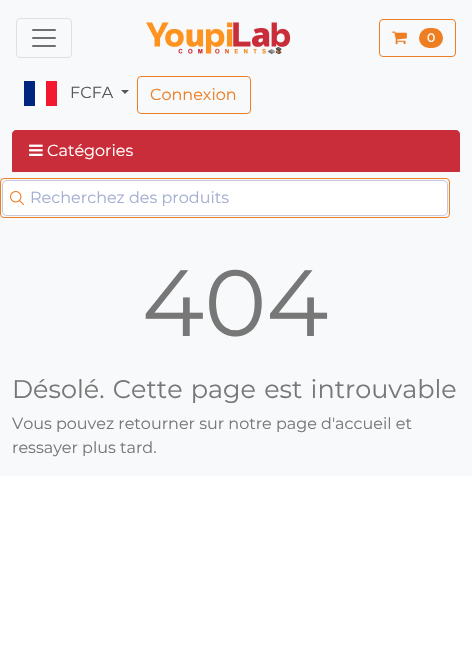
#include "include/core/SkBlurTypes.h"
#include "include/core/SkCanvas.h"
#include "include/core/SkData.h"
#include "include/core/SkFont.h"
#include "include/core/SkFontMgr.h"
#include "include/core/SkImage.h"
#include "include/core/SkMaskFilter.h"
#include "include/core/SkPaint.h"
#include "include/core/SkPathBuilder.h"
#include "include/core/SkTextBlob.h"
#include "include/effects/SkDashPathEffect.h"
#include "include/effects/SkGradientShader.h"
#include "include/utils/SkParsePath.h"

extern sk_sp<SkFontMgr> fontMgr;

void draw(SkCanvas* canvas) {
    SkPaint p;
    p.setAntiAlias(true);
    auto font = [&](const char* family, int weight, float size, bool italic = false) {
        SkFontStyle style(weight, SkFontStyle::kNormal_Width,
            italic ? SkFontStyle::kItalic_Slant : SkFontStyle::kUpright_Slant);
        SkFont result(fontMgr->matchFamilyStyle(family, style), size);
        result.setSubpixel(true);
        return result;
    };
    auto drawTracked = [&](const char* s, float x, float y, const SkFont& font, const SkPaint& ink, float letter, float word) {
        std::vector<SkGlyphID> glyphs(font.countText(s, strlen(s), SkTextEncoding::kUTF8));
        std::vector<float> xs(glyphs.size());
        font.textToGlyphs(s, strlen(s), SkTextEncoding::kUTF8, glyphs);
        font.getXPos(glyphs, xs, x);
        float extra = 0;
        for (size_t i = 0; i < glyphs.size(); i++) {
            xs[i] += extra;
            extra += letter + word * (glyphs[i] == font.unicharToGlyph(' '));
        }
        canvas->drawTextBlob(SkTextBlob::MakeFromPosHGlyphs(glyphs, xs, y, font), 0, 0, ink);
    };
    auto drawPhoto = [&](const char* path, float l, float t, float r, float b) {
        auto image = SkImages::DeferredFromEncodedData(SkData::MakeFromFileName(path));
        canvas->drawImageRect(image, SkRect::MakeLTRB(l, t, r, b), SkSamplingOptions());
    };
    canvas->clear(0xFFFFFFFF);
    p.setColor(0xFFF8F9FA);
    canvas->drawRect(SkRect::MakeLTRB(0, 0, 472, 476), p);
    p.setStyle(SkPaint::kStroke_Style);
    p.setStrokeWidth(1);
    p.setColor(0xFFDFE0E1);
    canvas->drawRoundRect(SkRect::MakeLTRB(16.5f, 18.5f, 71.5f, 57.5f), 3.5f, 3.5f, p);
    drawPhoto("media/1.png", 32, 29, 56, 47);
    drawPhoto("media/2.png", 146, 22, 291, 55);
    p.setColor(0xFFEF7D22);
    canvas->drawRoundRect(SkRect::MakeLTRB(379.5f, 19.5f, 455.5f, 56.5f), 3.5f, 3.5f, p);
    drawPhoto("media/3.png", 392, 31, 407, 45);
    p.setStyle(SkPaint::kFill_Style);
    canvas->drawRoundRect(SkRect::MakeLTRB(419, 28, 443, 48), 10, 10, p);
    auto font1 = font("Montserrat", 700, 12);
    p.setColor(0xFFFFFFFF);
    canvas->drawString("0", 427, 42, font1, p);
    {
        const struct { float l, t, r, b; SkColor color; } items[] = {
            {24, 81, 35, 106, 0xFF00267F},
            {35, 81, 46, 106, 0xFFFFFFFF},
            {46, 81, 57, 106, 0xFFF31830},
        };
        for (auto [l, t, r, b, color] : items) {
            p.setColor(color);
            canvas->drawRect(SkRect::MakeLTRB(l, t, r, b), p);
        }
    }
    auto font2 = font("Montserrat", 400, 16);
    p.setColor(0xFF575758);
    canvas->drawString("FCFA", 70, 98, font2, p);
    canvas->drawPath(SkPathBuilder().moveTo(121, 90).lineTo(129, 90).lineTo(125, 94).close().detach(), p);
    p.setStyle(SkPaint::kStroke_Style);
    p.setColor(0xFFEF7D22);
    canvas->drawRoundRect(SkRect::MakeLTRB(137.5f, 76.5f, 250.5f, 113.5f), 3.5f, 3.5f, p);
    p.setStyle(SkPaint::kFill_Style);
    canvas->drawString("Connexion", 150, 100, font2, p);
    p.setColor(0xFFC92D39);
    canvas->drawPath(SkPathBuilder().moveTo(16, 130.5f).lineTo(456, 130.5f).cubicTo(458, 130.5f, 459.5f, 132, 459.5f, 134).lineTo(459.5f, 171.5f).lineTo(12.5f, 171.5f).lineTo(12.5f, 134).cubicTo(12.5f, 132, 14, 130.5f, 16, 130.5f).close().detach(), p);
    p.setStyle(SkPaint::kStroke_Style);
    canvas->drawPath(SkPathBuilder().moveTo(16, 130.5f).lineTo(456, 130.5f).cubicTo(458, 130.5f, 459.5f, 132, 459.5f, 134).lineTo(459.5f, 171.5f).lineTo(12.5f, 171.5f).lineTo(12.5f, 134).cubicTo(12.5f, 132, 14, 130.5f, 16, 130.5f).close().detach(), p);
    drawPhoto("media/4.png", 29, 144, 43, 156);
    p.setStyle(SkPaint::kFill_Style);
    p.setColor(0xFFFFFFFF);
    canvas->drawString("Catégories", 47, 156, font2, p);
    p.setStyle(SkPaint::kStroke_Style);
    p.setColor(0xFFEF7D22);
    canvas->drawRoundRect(SkRect::MakeLTRB(0.5f, 178.5f, 449.5f, 217.5f), 3.5f, 3.5f, p);
    p.setStyle(SkPaint::kFill_Style);
    p.setColor(0xFFFFFFFF);
    canvas->drawRoundRect(SkRect::MakeLTRB(2.5f, 180.5f, 447.5f, 215.5f), 4.5f, 4.5f, p);
    p.setStyle(SkPaint::kStroke_Style);
    p.setColor(0xFFC4C8D8);
    canvas->drawRoundRect(SkRect::MakeLTRB(2.5f, 180.5f, 447.5f, 215.5f), 4.5f, 4.5f, p);
    drawPhoto("media/5.png", 10, 191, 24, 205);
    p.setStyle(SkPaint::kFill_Style);
    p.setColor(0xFFA5AED1);
    canvas->drawString("Recherchez des produits", 30, 203, font2, p);
    auto font3 = font("Montserrat", 400, 94);
    p.setColor(0xFF777777);
    canvas->drawString("404", 142, 336, font3, p);
    auto font4 = font("Montserrat", 400, 25.5f);
    drawTracked("Désolé. Cette page est introuvable", 12, 398, font4, p, 0, 1.5f);
    canvas->drawString("Vous pouvez retourner sur notre page d'accueil et", 12, 429, font2, p);
    canvas->drawString("ressayer plus tard.", 12, 453, font2, p);
}
